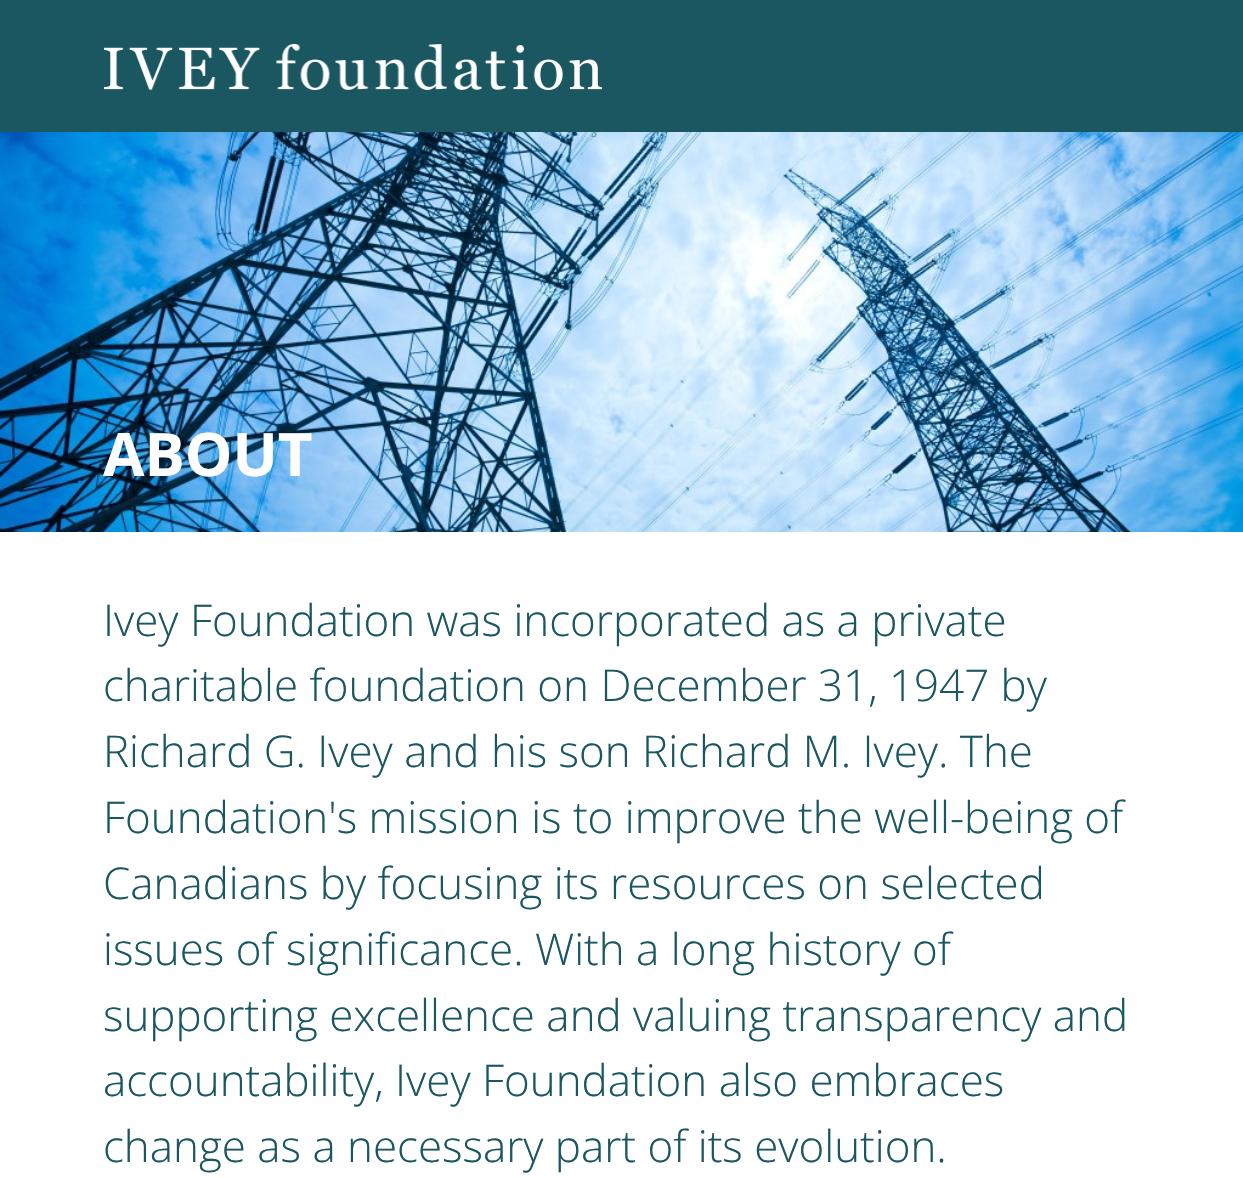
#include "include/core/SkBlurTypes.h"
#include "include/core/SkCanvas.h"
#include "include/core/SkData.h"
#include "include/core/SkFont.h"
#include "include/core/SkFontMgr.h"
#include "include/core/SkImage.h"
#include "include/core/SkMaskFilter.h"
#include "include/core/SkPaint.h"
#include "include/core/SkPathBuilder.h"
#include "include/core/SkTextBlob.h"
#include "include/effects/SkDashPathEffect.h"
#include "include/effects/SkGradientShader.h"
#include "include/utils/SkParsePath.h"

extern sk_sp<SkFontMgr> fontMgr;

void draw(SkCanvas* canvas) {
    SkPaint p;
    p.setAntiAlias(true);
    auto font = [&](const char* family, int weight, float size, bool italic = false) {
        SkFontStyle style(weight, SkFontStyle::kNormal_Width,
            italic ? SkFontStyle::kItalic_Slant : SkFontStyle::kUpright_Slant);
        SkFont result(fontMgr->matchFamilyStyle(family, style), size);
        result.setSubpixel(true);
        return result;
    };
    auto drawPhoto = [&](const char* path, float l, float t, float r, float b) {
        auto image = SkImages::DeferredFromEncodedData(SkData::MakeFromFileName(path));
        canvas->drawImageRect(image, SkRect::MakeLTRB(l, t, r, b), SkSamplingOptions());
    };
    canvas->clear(0xFFFFFFFF);
    p.setColor(0xFF1B5760);
    canvas->drawRect(SkRect::MakeLTRB(0, 0, 1243, 132), p);
    drawPhoto("media/1.png", 104, 44, 602, 90);
    drawPhoto("media/2.png", 0, 132, 1243, 532);
    auto font1 = font("Open Sans", 700, 60);
    p.setColor(0xFFFFFFFF);
    canvas->drawString("ABOUT", 103, 476, font1, p);
    auto font2 = font("Open Sans", 300, 43.9f);
    p.setColor(0xFF1B5760);
    {
        const struct { const char* s; float x, y; } items[] = {
            {"Ivey Foundation was incorporated as a private", 103, 636},
            {"charitable foundation on December 31, 1947 by", 103, 701},
            {"Richard G. Ivey and his son Richard M. Ivey. The", 103, 767},
            {"Foundation's mission is to improve the well-being of", 103, 833},
            {"Canadians by focusing its resources on selected", 103, 899},
            {"issues of significance. With a long history of", 103, 965},
            {"supporting excellence and valuing transparency and", 103, 1031},
            {"accountability, Ivey Foundation also embraces", 103, 1096},
            {"change as a necessary part of its evolution.", 103, 1162},
        };
        for (auto [s, x, y] : items) {
            canvas->drawString(s, x, y, font2, p);
        }
    }
}
